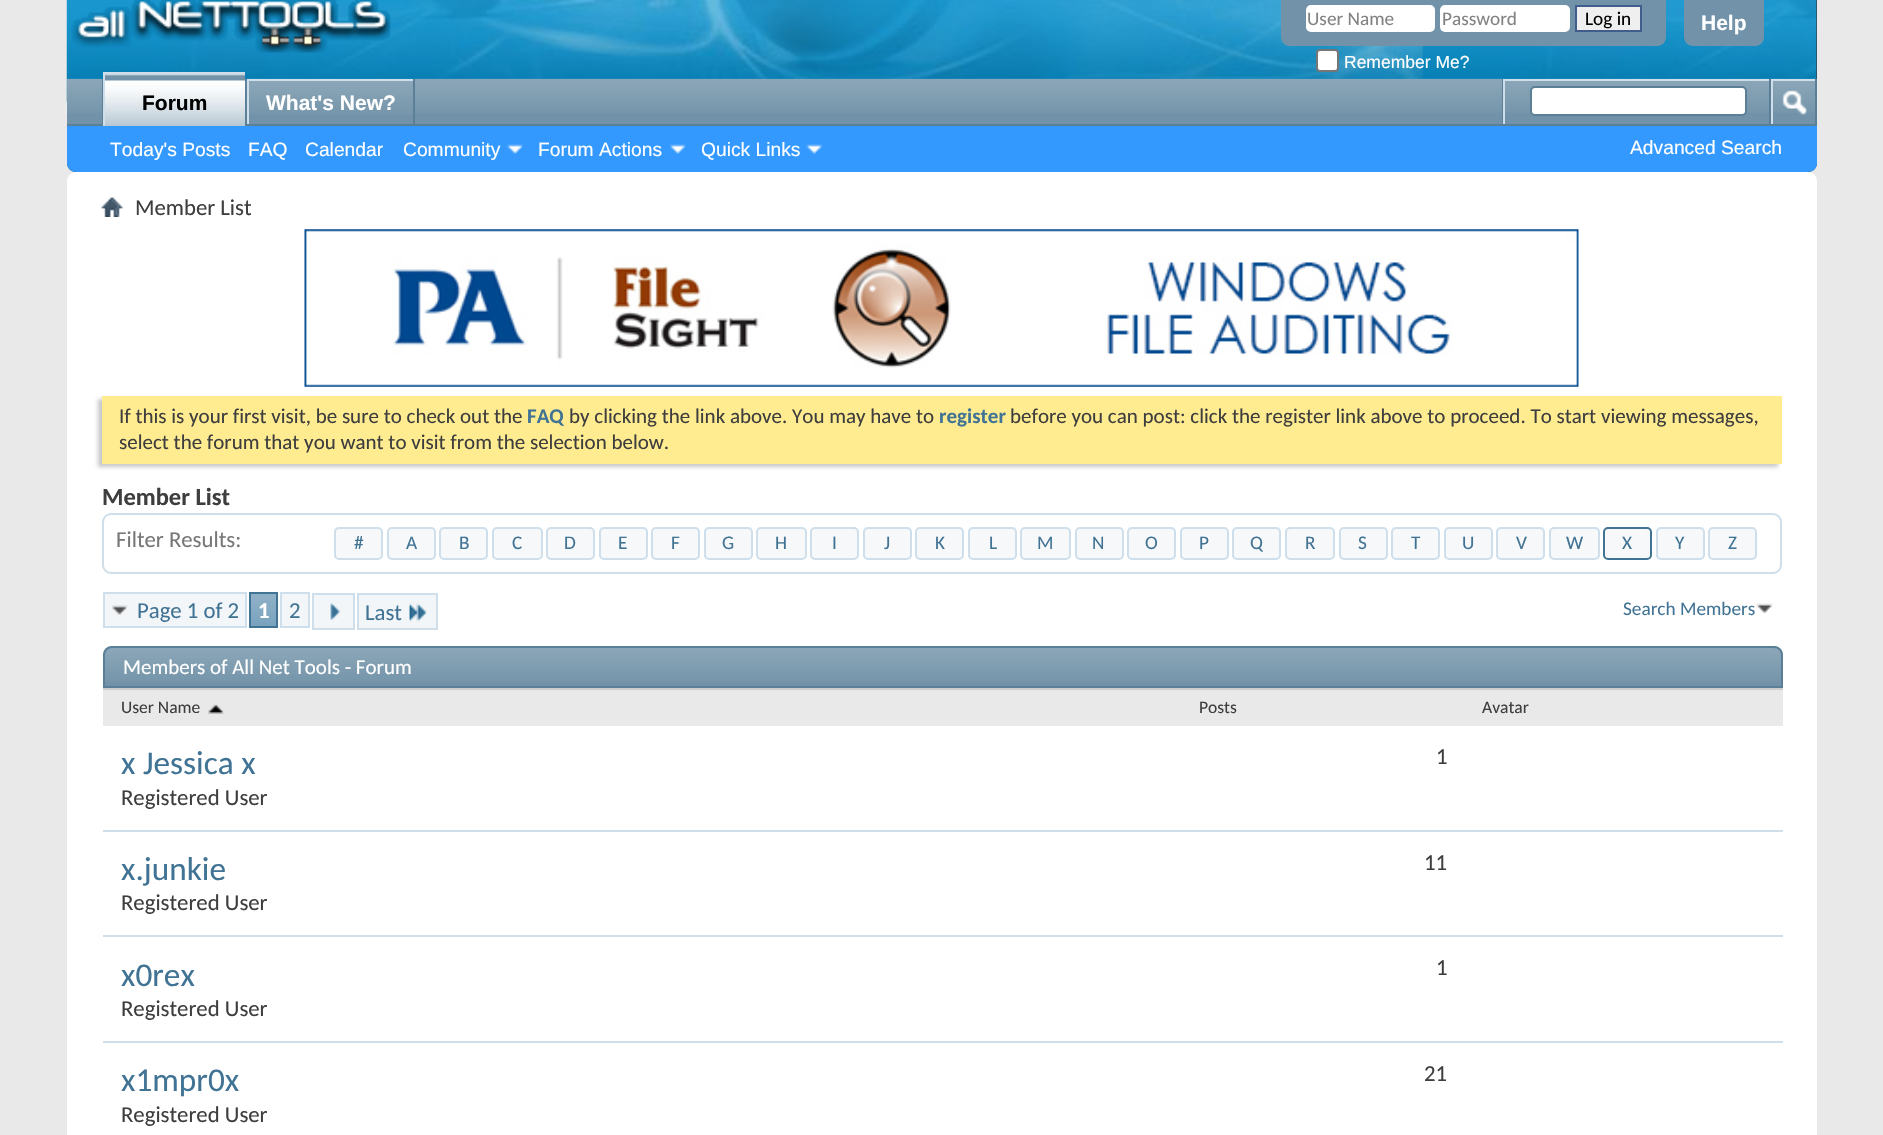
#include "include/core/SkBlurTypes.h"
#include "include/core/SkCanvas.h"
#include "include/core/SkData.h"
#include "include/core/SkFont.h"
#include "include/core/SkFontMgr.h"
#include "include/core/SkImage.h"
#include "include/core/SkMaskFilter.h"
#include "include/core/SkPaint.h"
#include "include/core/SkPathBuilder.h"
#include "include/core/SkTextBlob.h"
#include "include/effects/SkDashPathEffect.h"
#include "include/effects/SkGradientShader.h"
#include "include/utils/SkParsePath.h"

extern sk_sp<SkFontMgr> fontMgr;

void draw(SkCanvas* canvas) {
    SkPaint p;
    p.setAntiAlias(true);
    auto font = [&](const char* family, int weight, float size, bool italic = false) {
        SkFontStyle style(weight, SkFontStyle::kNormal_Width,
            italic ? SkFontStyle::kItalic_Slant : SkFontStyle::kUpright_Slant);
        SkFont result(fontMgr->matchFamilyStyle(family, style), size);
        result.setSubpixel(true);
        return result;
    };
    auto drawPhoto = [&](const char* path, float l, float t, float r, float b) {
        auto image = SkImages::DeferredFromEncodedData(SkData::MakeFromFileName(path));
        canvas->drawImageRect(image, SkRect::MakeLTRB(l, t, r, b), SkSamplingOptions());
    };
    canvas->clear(0xFFE9E9E9);
    p.setColor(0xFF2F4456);
    canvas->drawPath(SkPathBuilder().moveTo(67, 0).lineTo(1817, 0).lineTo(1817, 163).cubicTo(1817, 168, 1813, 172, 1808, 172).lineTo(76, 172).cubicTo(71, 172, 67, 168, 67, 163).close().detach(), p);
    drawPhoto("media/1.png", 66, 0, 1817, 114);
    drawPhoto("media/2.png", 71, 0, 391, 53);
    p.setColor(0xFF7192A8);
    canvas->drawPath(SkPathBuilder().moveTo(1281, 0).lineTo(1666, 0).lineTo(1666, 37).cubicTo(1666, 42, 1662, 46, 1657, 46).lineTo(1290, 46).cubicTo(1285, 46, 1281, 42, 1281, 37).close().detach(), p);
    p.setColor(0xFFFFFFFF);
    canvas->drawRoundRect(SkRect::MakeLTRB(1306, 5, 1435, 32), 5, 5, p);
    auto font1 = font("Carlito", 400, 19.25f);
    p.setColor(0xFF828282);
    canvas->drawString("User Name", 1307, 25, font1, p);
    p.setColor(0xFFFFFFFF);
    canvas->drawRoundRect(SkRect::MakeLTRB(1440, 5, 1570, 32), 5, 5, p);
    p.setColor(0xFF828282);
    canvas->drawString("Password", 1442, 25, font1, p);
    p.setColor(0xFFEFEFEF);
    canvas->drawRect(SkRect::MakeLTRB(1576, 6, 1641, 31), p);
    p.setStyle(SkPaint::kStroke_Style);
    p.setStrokeWidth(2);
    p.setColor(0xFF415D8D);
    canvas->drawRect(SkRect::MakeLTRB(1576, 6, 1641, 31), p);
    p.setStyle(SkPaint::kFill_Style);
    p.setColor(0xFF000000);
    canvas->drawString("Log in", 1585, 25, font1, p);
    p.setColor(0xFFFFFFFF);
    canvas->drawRoundRect(SkRect::MakeLTRB(1317, 50, 1338, 71), 3, 3, p);
    p.setStyle(SkPaint::kStroke_Style);
    p.setColor(0xFF767676);
    canvas->drawRoundRect(SkRect::MakeLTRB(1317, 50, 1338, 71), 3, 3, p);
    auto font2 = font("Liberation Sans", 400, 17.5f);
    p.setStyle(SkPaint::kFill_Style);
    p.setColor(0xFFFFFFFF);
    canvas->drawString("Remember Me?", 1344, 68, font2, p);
    p.setColor(0xFF7192A8);
    canvas->drawPath(SkPathBuilder().moveTo(1684, 0).lineTo(1764, 0).lineTo(1764, 37).cubicTo(1764, 42, 1760, 46, 1755, 46).lineTo(1693, 46).cubicTo(1688, 46, 1684, 42, 1684, 37).close().detach(), p);
    auto font3 = font("Liberation Sans", 700, 21);
    p.setColor(0xFFFFFFFF);
    canvas->drawString("Help", 1701, 30, font3, p);
    p.setColor(0xFF3399FF);
    canvas->drawPath(SkPathBuilder().moveTo(67, 79).lineTo(1817, 79).lineTo(1817, 163).cubicTo(1817, 168, 1813, 172, 1808, 172).lineTo(76, 172).cubicTo(71, 172, 67, 168, 67, 163).close().detach(), p);
    p.setColor(0xFF7192A8);
    canvas->drawRect(SkRect::MakeLTRB(67, 79, 1815, 124), p);
    drawPhoto("media/3.png", 66, 78, 1817, 113);
    {
        const struct { float l, t, r, b; SkColor color; } items[] = {
            {413, 79, 415, 126, 0xFF5A7F97},
            {249, 81, 413, 113, 0xFF7192A8},
            {245, 79, 247, 124, 0xFF5A7F97},
        };
        for (auto [l, t, r, b, color] : items) {
            p.setColor(color);
            canvas->drawRect(SkRect::MakeLTRB(l, t, r, b), p);
        }
    }
    drawPhoto("media/4.png", 246, 80, 413, 115);
    p.setColor(0xFFCEDFEB);
    canvas->drawRect(SkRect::MakeLTRB(247, 79, 413, 81), p);
    canvas->drawRect(SkRect::MakeLTRB(247, 79, 249, 126), p);
    p.setColor(0xFFFFFFFF);
    canvas->drawString("What's New?", 266, 110, font3, p);
    {
        const struct { float l, t, r, b; SkColor color; } items[] = {
            {102, 79, 103, 124, 0xFF5A7F97},
            {67, 124, 1817, 126, 0xFF5A7F97},
            {105, 74, 245, 126, 0xFF7192A8},
        };
        for (auto [l, t, r, b, color] : items) {
            p.setColor(color);
            canvas->drawRect(SkRect::MakeLTRB(l, t, r, b), p);
        }
    }
    drawPhoto("media/5.png", 105, 74, 245, 126);
    p.setColor(0xFFCEDFEB);
    canvas->drawRect(SkRect::MakeLTRB(103, 72, 245, 74), p);
    canvas->drawRect(SkRect::MakeLTRB(103, 72, 105, 126), p);
    p.setColor(0xFF000000);
    canvas->drawString("Forum", 142, 110, font3, p);
    auto font4 = font("Liberation Sans", 400, 19.25f);
    p.setColor(0xFFFFFFFF);
    {
        const struct { const char* s; float x, y; } items[] = {
            {"Today's Posts", 110, 156},
            {"FAQ", 248, 156},
            {"Calendar", 305, 156},
            {"Community", 403, 156},
        };
        for (auto [s, x, y] : items) {
            canvas->drawString(s, x, y, font4, p);
        }
    }
    drawPhoto("media/6.png", 507, 144, 524, 154);
    canvas->drawString("Forum Actions", 538, 156, font4, p);
    drawPhoto("media/7.png", 670, 144, 686, 154);
    canvas->drawString("Quick Links", 701, 156, font4, p);
    drawPhoto("media/8.png", 806, 144, 823, 154);
    {
        const struct { float l, t, r, b; SkColor color; } items[] = {
            {1502, 79, 1503, 124, 0xFF5A7F97},
            {1503, 79, 1769, 81, 0xFFCEDFEB},
            {1503, 79, 1505, 124, 0xFFCEDFEB},
        };
        for (auto [l, t, r, b, color] : items) {
            p.setColor(color);
            canvas->drawRect(SkRect::MakeLTRB(l, t, r, b), p);
        }
    }
    p.setColor(0xFFFFFFFF);
    canvas->drawRoundRect(SkRect::MakeLTRB(1531, 87, 1746, 115), 4, 4, p);
    p.setStyle(SkPaint::kStroke_Style);
    p.setColor(0xFF5A7F97);
    canvas->drawRoundRect(SkRect::MakeLTRB(1531, 87, 1746, 115), 4, 4, p);
    p.setStyle(SkPaint::kFill_Style);
    {
        const struct { float l, t, r, b; SkColor color; } items[] = {
            {1815, 79, 1817, 124, 0xFF5A7F97},
            {1769, 79, 1771, 124, 0xFF5A7F97},
            {1771, 79, 1815, 81, 0xFFCEDFEB},
            {1771, 79, 1773, 124, 0xFFCEDFEB},
        };
        for (auto [l, t, r, b, color] : items) {
            p.setColor(color);
            canvas->drawRect(SkRect::MakeLTRB(l, t, r, b), p);
        }
    }
    drawPhoto("media/9.png", 1782, 90, 1807, 116);
    p.setColor(0xFFFFFFFF);
    canvas->drawString("Advanced Search", 1630, 154, font4, p);
    canvas->drawRoundRect(SkRect::MakeLTRB(67, 172, 1817, 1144), 9, 9, p);
    drawPhoto("media/10.png", 101, 197, 123, 217);
    auto font5 = font("Carlito", 400, 22.75f);
    p.setColor(0xFF3E3E3E);
    canvas->drawString("Member List", 135, 215, font5, p);
    drawPhoto("media/11.png", 304, 229, 1579, 387);
    p.setColor(0xFFC8C8C8);
    p.setMaskFilter(SkMaskFilter::MakeBlur(kNormal_SkBlurStyle, 2));
    canvas->drawRect(SkRect::MakeLTRB(98, 399, 1778, 467), p);
    p.setMaskFilter(nullptr);
    p.setColor(0xFFFFEB90);
    canvas->drawRect(SkRect::MakeLTRB(102, 396, 1782, 464), p);
    auto font6 = font("Carlito", 400, 21);
    p.setColor(0xFF3E3E3E);
    canvas->drawString("If this is your first visit, be sure to check out the", 119, 423, font6, p);
    auto font7 = font("Carlito", 700, 21);
    p.setColor(0xFF417394);
    canvas->drawString("FAQ", 527, 423, font7, p);
    p.setColor(0xFF3E3E3E);
    canvas->drawString("by clicking the link above. You may have to", 569, 423, font6, p);
    p.setColor(0xFF417394);
    canvas->drawString("register", 939, 423, font7, p);
    p.setColor(0xFF3E3E3E);
    canvas->drawString("before you can post: click the register link above to proceed. To start viewing messages,", 1010, 423, font6, p);
    canvas->drawString("select the forum that you want to visit from the selection below.", 119, 449, font6, p);
    auto font8 = font("Carlito", 700, 24.5f);
    canvas->drawString("Member List", 102, 505, font8, p);
    p.setStyle(SkPaint::kStroke_Style);
    p.setColor(0xFFCEDFEB);
    canvas->drawRoundRect(SkRect::MakeLTRB(103, 514, 1781, 573), 8, 8, p);
    p.setStyle(SkPaint::kFill_Style);
    p.setColor(0xFF777777);
    canvas->drawString("Filter Results:", 116, 547, font5, p);
    p.setColor(0xFFF6F8F9);
    canvas->drawRoundRect(SkRect::MakeLTRB(335, 528, 382, 559), 4, 4, p);
    p.setStyle(SkPaint::kStroke_Style);
    p.setColor(0xFFCEDFEB);
    canvas->drawRoundRect(SkRect::MakeLTRB(335, 528, 382, 559), 4, 4, p);
    p.setStyle(SkPaint::kFill_Style);
    p.setColor(0xFF417394);
    canvas->drawString("#", 354, 549, font1, p);
    p.setColor(0xFFF6F8F9);
    canvas->drawRoundRect(SkRect::MakeLTRB(388, 528, 435, 559), 4, 4, p);
    p.setStyle(SkPaint::kStroke_Style);
    p.setColor(0xFFCEDFEB);
    canvas->drawRoundRect(SkRect::MakeLTRB(388, 528, 435, 559), 4, 4, p);
    p.setStyle(SkPaint::kFill_Style);
    p.setColor(0xFF417394);
    canvas->drawString("A", 406, 549, font1, p);
    p.setColor(0xFFF6F8F9);
    canvas->drawRoundRect(SkRect::MakeLTRB(440, 528, 487, 559), 4, 4, p);
    p.setStyle(SkPaint::kStroke_Style);
    p.setColor(0xFFCEDFEB);
    canvas->drawRoundRect(SkRect::MakeLTRB(440, 528, 487, 559), 4, 4, p);
    p.setStyle(SkPaint::kFill_Style);
    p.setColor(0xFF417394);
    canvas->drawString("B", 459, 549, font1, p);
    p.setColor(0xFFF6F8F9);
    canvas->drawRoundRect(SkRect::MakeLTRB(493, 528, 542, 559), 4, 4, p);
    p.setStyle(SkPaint::kStroke_Style);
    p.setColor(0xFFCEDFEB);
    canvas->drawRoundRect(SkRect::MakeLTRB(493, 528, 542, 559), 4, 4, p);
    p.setStyle(SkPaint::kFill_Style);
    p.setColor(0xFF417394);
    canvas->drawString("C", 512, 549, font1, p);
    p.setColor(0xFFF6F8F9);
    canvas->drawRoundRect(SkRect::MakeLTRB(547, 528, 594, 559), 4, 4, p);
    p.setStyle(SkPaint::kStroke_Style);
    p.setColor(0xFFCEDFEB);
    canvas->drawRoundRect(SkRect::MakeLTRB(547, 528, 594, 559), 4, 4, p);
    p.setStyle(SkPaint::kFill_Style);
    p.setColor(0xFF417394);
    canvas->drawString("D", 564, 549, font1, p);
    p.setColor(0xFFF6F8F9);
    canvas->drawRoundRect(SkRect::MakeLTRB(600, 528, 647, 559), 4, 4, p);
    p.setStyle(SkPaint::kStroke_Style);
    p.setColor(0xFFCEDFEB);
    canvas->drawRoundRect(SkRect::MakeLTRB(600, 528, 647, 559), 4, 4, p);
    p.setStyle(SkPaint::kFill_Style);
    p.setColor(0xFF417394);
    canvas->drawString("E", 618, 549, font1, p);
    p.setColor(0xFFF6F8F9);
    canvas->drawRoundRect(SkRect::MakeLTRB(652, 528, 699, 559), 4, 4, p);
    p.setStyle(SkPaint::kStroke_Style);
    p.setColor(0xFFCEDFEB);
    canvas->drawRoundRect(SkRect::MakeLTRB(652, 528, 699, 559), 4, 4, p);
    p.setStyle(SkPaint::kFill_Style);
    p.setColor(0xFF417394);
    canvas->drawString("F", 671, 549, font1, p);
    p.setColor(0xFFF6F8F9);
    canvas->drawRoundRect(SkRect::MakeLTRB(705, 528, 752, 559), 4, 4, p);
    p.setStyle(SkPaint::kStroke_Style);
    p.setColor(0xFFCEDFEB);
    canvas->drawRoundRect(SkRect::MakeLTRB(705, 528, 752, 559), 4, 4, p);
    p.setStyle(SkPaint::kFill_Style);
    p.setColor(0xFF417394);
    canvas->drawString("G", 722, 549, font1, p);
    p.setColor(0xFFF6F8F9);
    canvas->drawRoundRect(SkRect::MakeLTRB(757, 528, 806, 559), 4, 4, p);
    p.setStyle(SkPaint::kStroke_Style);
    p.setColor(0xFFCEDFEB);
    canvas->drawRoundRect(SkRect::MakeLTRB(757, 528, 806, 559), 4, 4, p);
    p.setStyle(SkPaint::kFill_Style);
    p.setColor(0xFF417394);
    canvas->drawString("H", 775, 549, font1, p);
    p.setColor(0xFFF6F8F9);
    canvas->drawRoundRect(SkRect::MakeLTRB(811, 528, 858, 559), 4, 4, p);
    p.setStyle(SkPaint::kStroke_Style);
    p.setColor(0xFFCEDFEB);
    canvas->drawRoundRect(SkRect::MakeLTRB(811, 528, 858, 559), 4, 4, p);
    p.setStyle(SkPaint::kFill_Style);
    p.setColor(0xFF417394);
    canvas->drawString("I", 832, 549, font1, p);
    p.setColor(0xFFF6F8F9);
    canvas->drawRoundRect(SkRect::MakeLTRB(864, 528, 911, 559), 4, 4, p);
    p.setStyle(SkPaint::kStroke_Style);
    p.setColor(0xFFCEDFEB);
    canvas->drawRoundRect(SkRect::MakeLTRB(864, 528, 911, 559), 4, 4, p);
    p.setStyle(SkPaint::kFill_Style);
    p.setColor(0xFF417394);
    canvas->drawString("J", 884, 549, font1, p);
    p.setColor(0xFFF6F8F9);
    canvas->drawRoundRect(SkRect::MakeLTRB(916, 528, 963, 559), 4, 4, p);
    p.setStyle(SkPaint::kStroke_Style);
    p.setColor(0xFFCEDFEB);
    canvas->drawRoundRect(SkRect::MakeLTRB(916, 528, 963, 559), 4, 4, p);
    p.setStyle(SkPaint::kFill_Style);
    p.setColor(0xFF417394);
    canvas->drawString("K", 935, 549, font1, p);
    p.setColor(0xFFF6F8F9);
    canvas->drawRoundRect(SkRect::MakeLTRB(969, 528, 1016, 559), 4, 4, p);
    p.setStyle(SkPaint::kStroke_Style);
    p.setColor(0xFFCEDFEB);
    canvas->drawRoundRect(SkRect::MakeLTRB(969, 528, 1016, 559), 4, 4, p);
    p.setStyle(SkPaint::kFill_Style);
    p.setColor(0xFF417394);
    canvas->drawString("L", 989, 549, font1, p);
    p.setColor(0xFFF6F8F9);
    canvas->drawRoundRect(SkRect::MakeLTRB(1021, 528, 1070, 559), 4, 4, p);
    p.setStyle(SkPaint::kStroke_Style);
    p.setColor(0xFFCEDFEB);
    canvas->drawRoundRect(SkRect::MakeLTRB(1021, 528, 1070, 559), 4, 4, p);
    p.setStyle(SkPaint::kFill_Style);
    p.setColor(0xFF417394);
    canvas->drawString("M", 1037, 549, font1, p);
    p.setColor(0xFFF6F8F9);
    canvas->drawRoundRect(SkRect::MakeLTRB(1076, 528, 1123, 559), 4, 4, p);
    p.setStyle(SkPaint::kStroke_Style);
    p.setColor(0xFFCEDFEB);
    canvas->drawRoundRect(SkRect::MakeLTRB(1076, 528, 1123, 559), 4, 4, p);
    p.setStyle(SkPaint::kFill_Style);
    p.setColor(0xFF417394);
    canvas->drawString("N", 1092, 549, font1, p);
    p.setColor(0xFFF6F8F9);
    canvas->drawRoundRect(SkRect::MakeLTRB(1128, 528, 1175, 559), 4, 4, p);
    p.setStyle(SkPaint::kStroke_Style);
    p.setColor(0xFFCEDFEB);
    canvas->drawRoundRect(SkRect::MakeLTRB(1128, 528, 1175, 559), 4, 4, p);
    p.setStyle(SkPaint::kFill_Style);
    p.setColor(0xFF417394);
    canvas->drawString("O", 1145, 549, font1, p);
    p.setColor(0xFFF6F8F9);
    canvas->drawRoundRect(SkRect::MakeLTRB(1181, 528, 1228, 559), 4, 4, p);
    p.setStyle(SkPaint::kStroke_Style);
    p.setColor(0xFFCEDFEB);
    canvas->drawRoundRect(SkRect::MakeLTRB(1181, 528, 1228, 559), 4, 4, p);
    p.setStyle(SkPaint::kFill_Style);
    p.setColor(0xFF417394);
    canvas->drawString("P", 1199, 549, font1, p);
    p.setColor(0xFFF6F8F9);
    canvas->drawRoundRect(SkRect::MakeLTRB(1233, 528, 1280, 559), 4, 4, p);
    p.setStyle(SkPaint::kStroke_Style);
    p.setColor(0xFFCEDFEB);
    canvas->drawRoundRect(SkRect::MakeLTRB(1233, 528, 1280, 559), 4, 4, p);
    p.setStyle(SkPaint::kFill_Style);
    p.setColor(0xFF417394);
    canvas->drawString("Q", 1250, 549, font1, p);
    p.setColor(0xFFF6F8F9);
    canvas->drawRoundRect(SkRect::MakeLTRB(1286, 528, 1334, 559), 4, 4, p);
    p.setStyle(SkPaint::kStroke_Style);
    p.setColor(0xFFCEDFEB);
    canvas->drawRoundRect(SkRect::MakeLTRB(1286, 528, 1334, 559), 4, 4, p);
    p.setStyle(SkPaint::kFill_Style);
    p.setColor(0xFF417394);
    canvas->drawString("R", 1305, 549, font1, p);
    p.setColor(0xFFF6F8F9);
    canvas->drawRoundRect(SkRect::MakeLTRB(1340, 528, 1387, 559), 4, 4, p);
    p.setStyle(SkPaint::kStroke_Style);
    p.setColor(0xFFCEDFEB);
    canvas->drawRoundRect(SkRect::MakeLTRB(1340, 528, 1387, 559), 4, 4, p);
    p.setStyle(SkPaint::kFill_Style);
    p.setColor(0xFF417394);
    canvas->drawString("S", 1358, 549, font1, p);
    p.setColor(0xFFF6F8F9);
    canvas->drawRoundRect(SkRect::MakeLTRB(1392, 528, 1439, 559), 4, 4, p);
    p.setStyle(SkPaint::kStroke_Style);
    p.setColor(0xFFCEDFEB);
    canvas->drawRoundRect(SkRect::MakeLTRB(1392, 528, 1439, 559), 4, 4, p);
    p.setStyle(SkPaint::kFill_Style);
    p.setColor(0xFF417394);
    canvas->drawString("T", 1411, 549, font1, p);
    p.setColor(0xFFF6F8F9);
    canvas->drawRoundRect(SkRect::MakeLTRB(1445, 528, 1492, 559), 4, 4, p);
    p.setStyle(SkPaint::kStroke_Style);
    p.setColor(0xFFCEDFEB);
    canvas->drawRoundRect(SkRect::MakeLTRB(1445, 528, 1492, 559), 4, 4, p);
    p.setStyle(SkPaint::kFill_Style);
    p.setColor(0xFF417394);
    canvas->drawString("U", 1462, 549, font1, p);
    p.setColor(0xFFF6F8F9);
    canvas->drawRoundRect(SkRect::MakeLTRB(1497, 528, 1544, 559), 4, 4, p);
    p.setStyle(SkPaint::kStroke_Style);
    p.setColor(0xFFCEDFEB);
    canvas->drawRoundRect(SkRect::MakeLTRB(1497, 528, 1544, 559), 4, 4, p);
    p.setStyle(SkPaint::kFill_Style);
    p.setColor(0xFF417394);
    canvas->drawString("V", 1516, 549, font1, p);
    p.setColor(0xFFF6F8F9);
    canvas->drawRoundRect(SkRect::MakeLTRB(1550, 528, 1599, 559), 4, 4, p);
    p.setStyle(SkPaint::kStroke_Style);
    p.setColor(0xFFCEDFEB);
    canvas->drawRoundRect(SkRect::MakeLTRB(1550, 528, 1599, 559), 4, 4, p);
    p.setStyle(SkPaint::kFill_Style);
    p.setColor(0xFF417394);
    canvas->drawString("W", 1566, 549, font1, p);
    p.setColor(0xFFF6F8F9);
    canvas->drawRoundRect(SkRect::MakeLTRB(1604, 528, 1651, 559), 4, 4, p);
    p.setStyle(SkPaint::kStroke_Style);
    p.setColor(0xFF417394);
    canvas->drawRoundRect(SkRect::MakeLTRB(1604, 528, 1651, 559), 4, 4, p);
    p.setStyle(SkPaint::kFill_Style);
    canvas->drawString("X", 1622, 549, font1, p);
    p.setColor(0xFFF6F8F9);
    canvas->drawRoundRect(SkRect::MakeLTRB(1657, 528, 1704, 559), 4, 4, p);
    p.setStyle(SkPaint::kStroke_Style);
    p.setColor(0xFFCEDFEB);
    canvas->drawRoundRect(SkRect::MakeLTRB(1657, 528, 1704, 559), 4, 4, p);
    p.setStyle(SkPaint::kFill_Style);
    p.setColor(0xFF417394);
    canvas->drawString("Y", 1675, 549, font1, p);
    p.setColor(0xFFF6F8F9);
    canvas->drawRoundRect(SkRect::MakeLTRB(1709, 528, 1756, 559), 4, 4, p);
    p.setStyle(SkPaint::kStroke_Style);
    p.setColor(0xFFCEDFEB);
    canvas->drawRoundRect(SkRect::MakeLTRB(1709, 528, 1756, 559), 4, 4, p);
    p.setStyle(SkPaint::kFill_Style);
    p.setColor(0xFF417394);
    canvas->drawString("Z", 1728, 549, font1, p);
    p.setColor(0xFFF2F6F8);
    canvas->drawRect(SkRect::MakeLTRB(105, 594, 245, 626), p);
    drawPhoto("media/12.png", 111, 605, 128, 615);
    p.setStyle(SkPaint::kStroke_Style);
    p.setColor(0xFFCEDFEB);
    canvas->drawRect(SkRect::MakeLTRB(104, 593, 246, 627), p);
    p.setStyle(SkPaint::kFill_Style);
    p.setColor(0xFF417394);
    canvas->drawString("Page 1 of 2", 137, 618, font5, p);
    p.setColor(0xFF759FBB);
    canvas->drawRect(SkRect::MakeLTRB(251, 594, 276, 626), p);
    drawPhoto("media/13.png", 251, 594, 276, 626);
    p.setStyle(SkPaint::kStroke_Style);
    p.setColor(0xFF417394);
    canvas->drawRect(SkRect::MakeLTRB(250, 593, 277, 627), p);
    auto font9 = font("Carlito", 700, 22.75f);
    p.setStyle(SkPaint::kFill_Style);
    p.setColor(0xFFFFFFFF);
    canvas->drawString("1", 258, 618, font9, p);
    p.setColor(0xFFF2F6F8);
    canvas->drawRect(SkRect::MakeLTRB(281, 593, 309, 627), p);
    p.setStyle(SkPaint::kStroke_Style);
    p.setColor(0xFFCEDFEB);
    canvas->drawRect(SkRect::MakeLTRB(281, 593, 309, 627), p);
    p.setStyle(SkPaint::kFill_Style);
    p.setColor(0xFF417394);
    canvas->drawString("2", 289, 618, font5, p);
    p.setColor(0xFFF2F6F8);
    canvas->drawRect(SkRect::MakeLTRB(313, 594, 354, 629), p);
    p.setStyle(SkPaint::kStroke_Style);
    p.setColor(0xFFCEDFEB);
    canvas->drawRect(SkRect::MakeLTRB(313, 594, 354, 629), p);
    drawPhoto("media/14.png", 330, 603, 340, 620);
    p.setStyle(SkPaint::kFill_Style);
    p.setColor(0xFFF2F6F8);
    canvas->drawRect(SkRect::MakeLTRB(359, 595, 436, 628), p);
    p.setColor(0xFF417394);
    canvas->drawString("Last", 365, 620, font5, p);
    {
        const struct { float l, t, r, b; SkColor color; } items[] = {
            {357, 593, 438, 595, 0xFFCEDFEB},
            {357, 628, 403, 630, 0xFFCEDFEB},
            {357, 593, 359, 630, 0xFFCEDFEB},
            {436, 593, 438, 630, 0xFFCEDFEB},
            {403, 628, 438, 630, 0xFFCEDFEB},
        };
        for (auto [l, t, r, b, color] : items) {
            p.setColor(color);
            canvas->drawRect(SkRect::MakeLTRB(l, t, r, b), p);
        }
    }
    drawPhoto("media/15.png", 409, 603, 427, 622);
    p.setColor(0xFF417394);
    canvas->drawString("Search Members", 1623, 615, font1, p);
    drawPhoto("media/16.png", 1756, 603, 1773, 613);
    p.setColor(0xFF7192A8);
    canvas->drawPath(SkPathBuilder().moveTo(112, 646).lineTo(1774, 646).cubicTo(1779, 646, 1783, 650, 1783, 655).lineTo(1783, 688).lineTo(103, 688).lineTo(103, 655).cubicTo(103, 650, 107, 646, 112, 646).close().detach(), p);
    drawPhoto("media/17.png", 103, 647, 1783, 682);
    p.setStyle(SkPaint::kStroke_Style);
    p.setColor(0xFF5A7F97);
    canvas->drawPath(SkPathBuilder().moveTo(112, 647).lineTo(1774, 647).cubicTo(1778.5f, 647, 1782, 650.5f, 1782, 655).lineTo(1782, 687).lineTo(104, 687).lineTo(104, 655).cubicTo(104, 650.5f, 107.5f, 647, 112, 647).close().detach(), p);
    p.setStyle(SkPaint::kFill_Style);
    p.setColor(0xFFFFFFFF);
    canvas->drawString("Members of All Net Tools - Forum", 123, 674, font6, p);
    p.setColor(0xFFE9E9E9);
    canvas->drawRect(SkRect::MakeLTRB(103, 690, 1783, 726), p);
    p.setColor(0xFFCECECE);
    canvas->drawRect(SkRect::MakeLTRB(103, 688, 1783, 690), p);
    auto font10 = font("Carlito", 400, 17.5f);
    p.setColor(0xFF3E3E3E);
    canvas->drawString("User Name", 121, 713, font10, p);
    drawPhoto("media/18.png", 208, 704, 224, 714);
    canvas->drawString("Posts", 1199, 713, font10, p);
    canvas->drawString("Avatar", 1482, 713, font10, p);
    auto font11 = font("Carlito", 400, 33.25f);
    p.setColor(0xFF417394);
    canvas->drawString("x Jessica x", 121, 774, font11, p);
    p.setColor(0xFF3E3E3E);
    canvas->drawString("Registered User", 121, 805, font5, p);
    canvas->drawString("1", 1436, 764, font5, p);
    p.setColor(0xFFCEDFEB);
    canvas->drawRect(SkRect::MakeLTRB(103, 830, 1783, 832), p);
    p.setColor(0xFF417394);
    canvas->drawString("x.junkie", 121, 880, font11, p);
    p.setColor(0xFF3E3E3E);
    canvas->drawString("Registered User", 121, 910, font5, p);
    canvas->drawString("11", 1424, 870, font5, p);
    p.setColor(0xFFCEDFEB);
    canvas->drawRect(SkRect::MakeLTRB(103, 935, 1783, 937), p);
    p.setColor(0xFF417394);
    canvas->drawString("x0rex", 121, 986, font11, p);
    p.setColor(0xFF3E3E3E);
    canvas->drawString("Registered User", 121, 1016, font5, p);
    canvas->drawString("1", 1436, 975, font5, p);
    p.setColor(0xFFCEDFEB);
    canvas->drawRect(SkRect::MakeLTRB(103, 1041, 1783, 1043), p);
    p.setColor(0xFF417394);
    canvas->drawString("x1mpr0x", 121, 1091, font11, p);
    p.setColor(0xFF3E3E3E);
    canvas->drawString("Registered User", 121, 1122, font5, p);
    canvas->drawString("21", 1424, 1081, font5, p);
}
